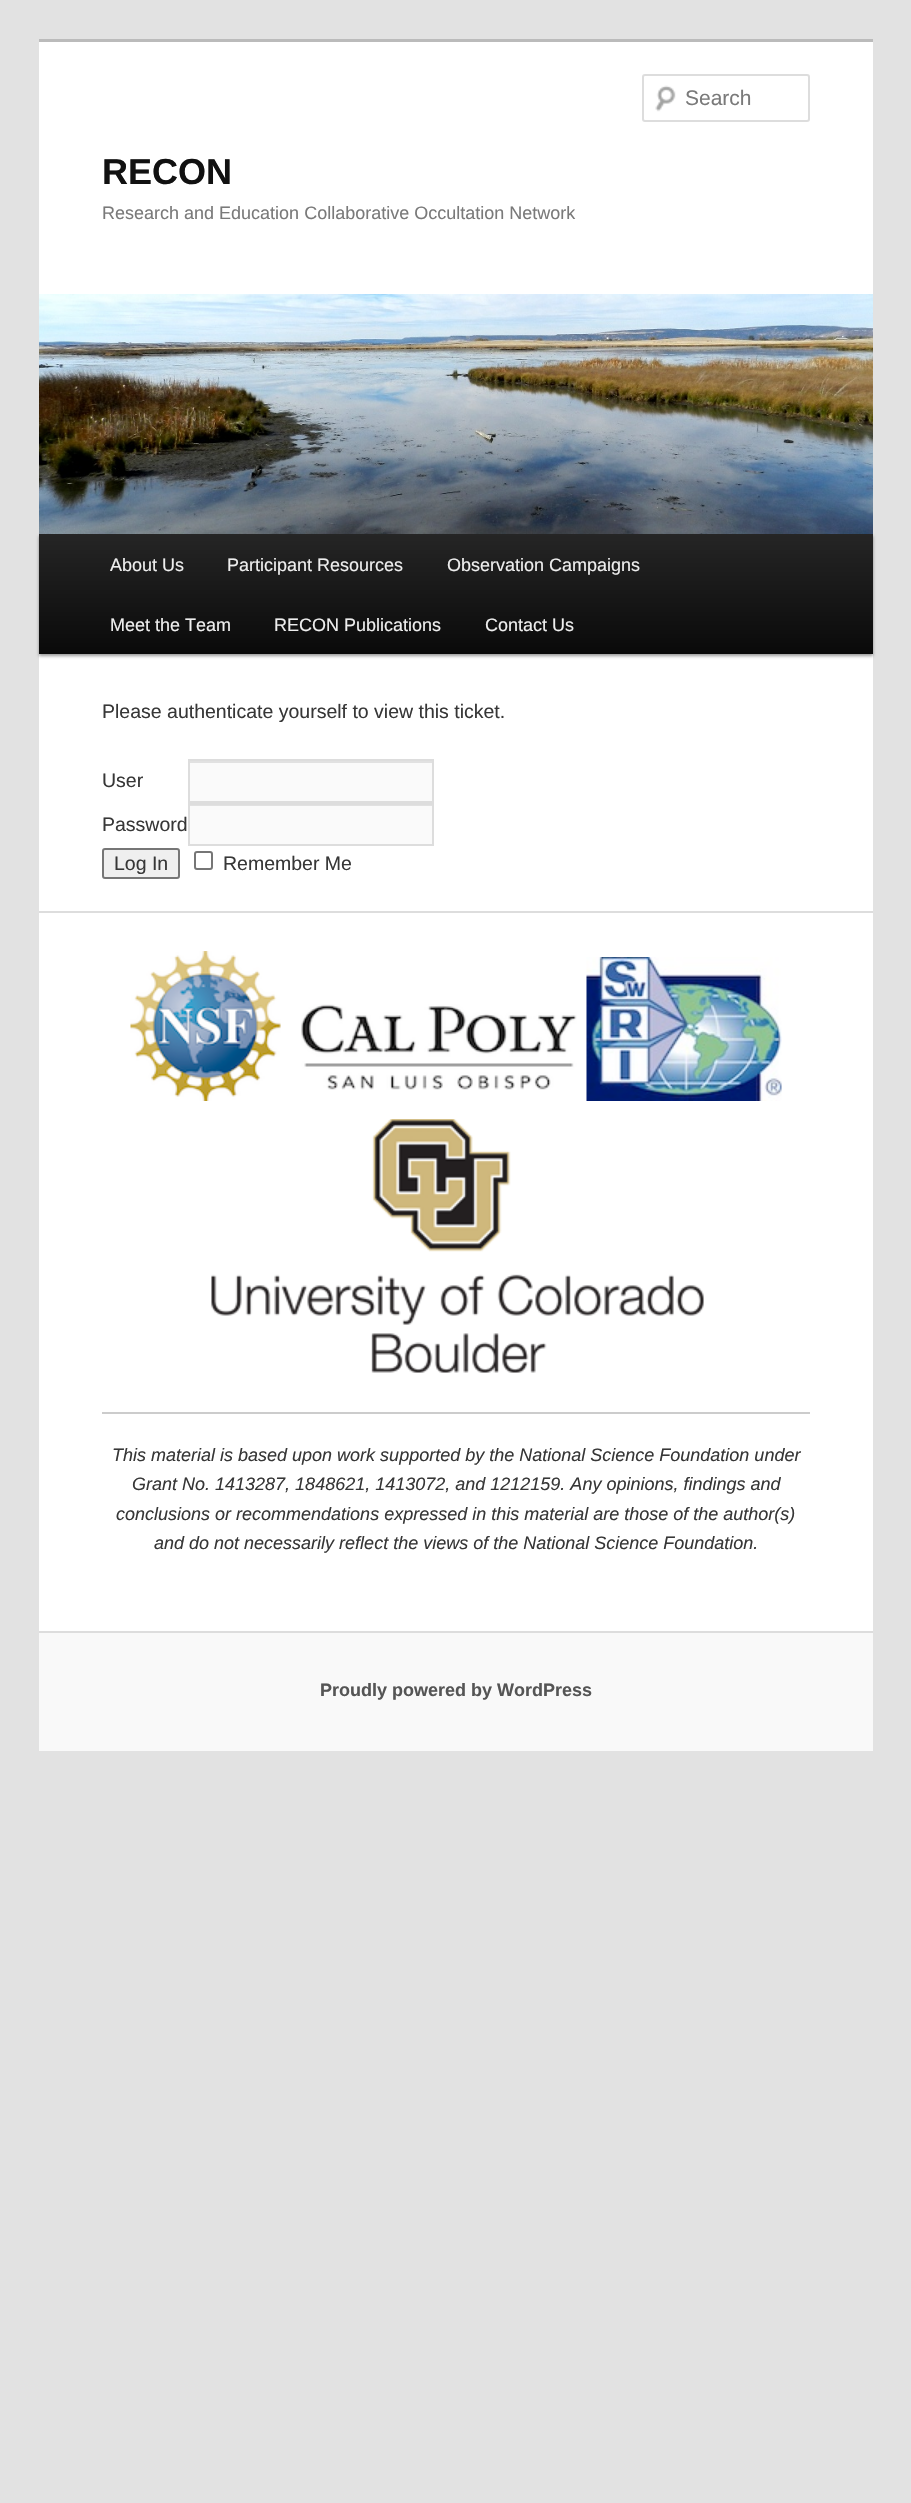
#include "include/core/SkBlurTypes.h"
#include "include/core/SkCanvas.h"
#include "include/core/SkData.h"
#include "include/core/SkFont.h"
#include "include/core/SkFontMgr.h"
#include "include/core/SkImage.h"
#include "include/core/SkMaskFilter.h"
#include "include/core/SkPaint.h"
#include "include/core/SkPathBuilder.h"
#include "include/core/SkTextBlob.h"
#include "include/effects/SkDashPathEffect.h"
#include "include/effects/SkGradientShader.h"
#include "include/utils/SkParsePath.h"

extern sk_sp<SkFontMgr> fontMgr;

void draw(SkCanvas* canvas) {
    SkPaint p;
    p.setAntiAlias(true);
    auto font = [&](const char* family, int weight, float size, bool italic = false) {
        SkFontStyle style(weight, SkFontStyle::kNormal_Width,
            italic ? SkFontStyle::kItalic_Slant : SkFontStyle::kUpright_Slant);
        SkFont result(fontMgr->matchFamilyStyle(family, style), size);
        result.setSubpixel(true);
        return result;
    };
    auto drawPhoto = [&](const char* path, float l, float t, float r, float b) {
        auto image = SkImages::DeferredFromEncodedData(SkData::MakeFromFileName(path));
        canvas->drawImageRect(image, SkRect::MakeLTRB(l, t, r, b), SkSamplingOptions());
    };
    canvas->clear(0xFFE2E2E2);
    p.setColor(0xFFFFFFFF);
    canvas->drawRect(SkRect::MakeLTRB(39, 42, 873, 1631), p);
    p.setColor(0xFFBBBBBB);
    canvas->drawRect(SkRect::MakeLTRB(39, 39, 873, 42), p);
    drawPhoto("media/1.png", 655, 85, 676, 112);
    p.setStyle(SkPaint::kStroke_Style);
    p.setStrokeWidth(2);
    p.setColor(0xFFDDDDDD);
    canvas->drawRoundRect(SkRect::MakeLTRB(643, 75, 809, 121), 2, 2, p);
    auto font1 = font("Liberation Sans", 400, 21);
    p.setStyle(SkPaint::kFill_Style);
    p.setColor(0xFF7A7A7A);
    canvas->drawString("Search", 685, 105, font1, p);
    auto font2 = font("Liberation Sans", 700, 36);
    p.setColor(0xFF111111);
    canvas->drawString("RECON", 102, 184, font2, p);
    auto font3 = font("Liberation Sans", 400, 18);
    p.setColor(0xFF7A7A7A);
    canvas->drawString("Research and Education Collaborative Occultation Network", 102, 219, font3, p);
    p.setColor(0x66000000);
    p.setMaskFilter(SkMaskFilter::MakeBlur(kNormal_SkBlurStyle, 1.5f));
    canvas->drawRect(SkRect::MakeLTRB(39, 536, 873, 656), p);
    p.setMaskFilter(nullptr);
    drawPhoto("media/2.png", 39, 294, 873, 534);
    {
        const SkColor colors[] = {0xFF252525, 0xFF0A0A0A};
        const float stops[] = {0, 1};
        const SkPoint ends[] = {{456, 534}, {456, 654}};
        p.setShader(SkGradientShader::MakeLinear(ends, colors, stops, 2, SkTileMode::kClamp));
        p.setAlpha(255);
    }
    canvas->drawRect(SkRect::MakeLTRB(39, 534, 873, 654), p);
    p.setShader(nullptr);
    p.setColor(0xFFEEEEEE);
    {
        const struct { const char* s; float x, y; } items[] = {
            {"About Us", 110, 571},
            {"Participant Resources", 227, 571},
            {"Observation Campaigns", 447, 571},
            {"Meet the Team", 110, 631},
            {"RECON Publications", 274, 631},
            {"Contact Us", 485, 631},
        };
        for (auto [s, x, y] : items) {
            canvas->drawString(s, x, y, font3, p);
        }
    }
    auto font4 = font("Liberation Sans", 400, 19.5f);
    p.setColor(0xFF373737);
    canvas->drawString("Please authenticate yourself to view this ticket.", 102, 718, font4, p);
    canvas->drawString("User", 102, 787, font4, p);
    p.setColor(0xFFFAFAFA);
    canvas->drawRect(SkRect::MakeLTRB(190, 763, 432, 801), p);
    p.setColor(0xFFE1E1E1);
    canvas->drawRect(SkRect::MakeLTRB(189, 761, 432, 763), p);
    p.setStyle(SkPaint::kStroke_Style);
    p.setColor(0xFFDDDDDD);
    canvas->drawRect(SkRect::MakeLTRB(189, 760, 433, 802), p);
    p.setStyle(SkPaint::kFill_Style);
    p.setColor(0xFF373737);
    canvas->drawString("Password", 102, 831, font4, p);
    p.setColor(0xFFFAFAFA);
    canvas->drawRect(SkRect::MakeLTRB(190, 806, 432, 844), p);
    p.setColor(0xFFE1E1E1);
    canvas->drawRect(SkRect::MakeLTRB(189, 805, 432, 806), p);
    p.setStyle(SkPaint::kStroke_Style);
    p.setColor(0xFFDDDDDD);
    canvas->drawRect(SkRect::MakeLTRB(189, 804, 433, 845), p);
    p.setStyle(SkPaint::kFill_Style);
    p.setColor(0xFFEFEFEF);
    canvas->drawRoundRect(SkRect::MakeLTRB(103, 849, 179, 878), 2, 2, p);
    p.setStyle(SkPaint::kStroke_Style);
    p.setColor(0xFF767676);
    canvas->drawRoundRect(SkRect::MakeLTRB(103, 849, 179, 878), 2, 2, p);
    p.setStyle(SkPaint::kFill_Style);
    p.setColor(0xFF373737);
    canvas->drawString("Log In", 114, 870, font4, p);
    p.setStyle(SkPaint::kStroke_Style);
    p.setColor(0xFF767676);
    canvas->drawRoundRect(SkRect::MakeLTRB(195, 852, 212, 869), 2, 2, p);
    p.setStyle(SkPaint::kFill_Style);
    p.setColor(0xFF373737);
    canvas->drawString("Remember Me", 223, 870, font4, p);
    p.setColor(0xFFDDDDDD);
    canvas->drawRect(SkRect::MakeLTRB(39, 911, 873, 913), p);
    drawPhoto("media/3.png", 130, 951, 281, 1101);
    drawPhoto("media/4.png", 301, 1004, 577, 1090);
    drawPhoto("media/5.png", 586, 957, 782, 1101);
    drawPhoto("media/6.png", 211, 1119, 704, 1373);
    p.setColor(0xFFCCCCCC);
    canvas->drawRect(SkRect::MakeLTRB(102, 1412, 810, 1414), p);
    auto font5 = font("Liberation Sans", 400, 18, true);
    p.setColor(0xFF373737);
    {
        const struct { const char* s; float x, y; } items[] = {
            {"This material is based upon work supported by the National Science Foundation under", 112, 1461},
            {"Grant No. 1413287, 1848621, 1413072, and 1212159. Any opinions, findings and", 132, 1490},
            {"conclusions or recommendations expressed in this material are those of the author(s)", 116, 1520},
            {"and do not necessarily reflect the views of the National Science Foundation.", 154, 1549},
        };
        for (auto [s, x, y] : items) {
            canvas->drawString(s, x, y, font5, p);
        }
    }
    p.setColor(0xFFF9F9F9);
    canvas->drawRect(SkRect::MakeLTRB(39, 1633, 873, 1751), p);
    p.setColor(0xFFDDDDDD);
    canvas->drawRect(SkRect::MakeLTRB(39, 1631, 873, 1633), p);
    auto font6 = font("Liberation Sans", 700, 18);
    p.setColor(0xFF555555);
    canvas->drawString("Proudly powered by WordPress", 320, 1696, font6, p);
}
